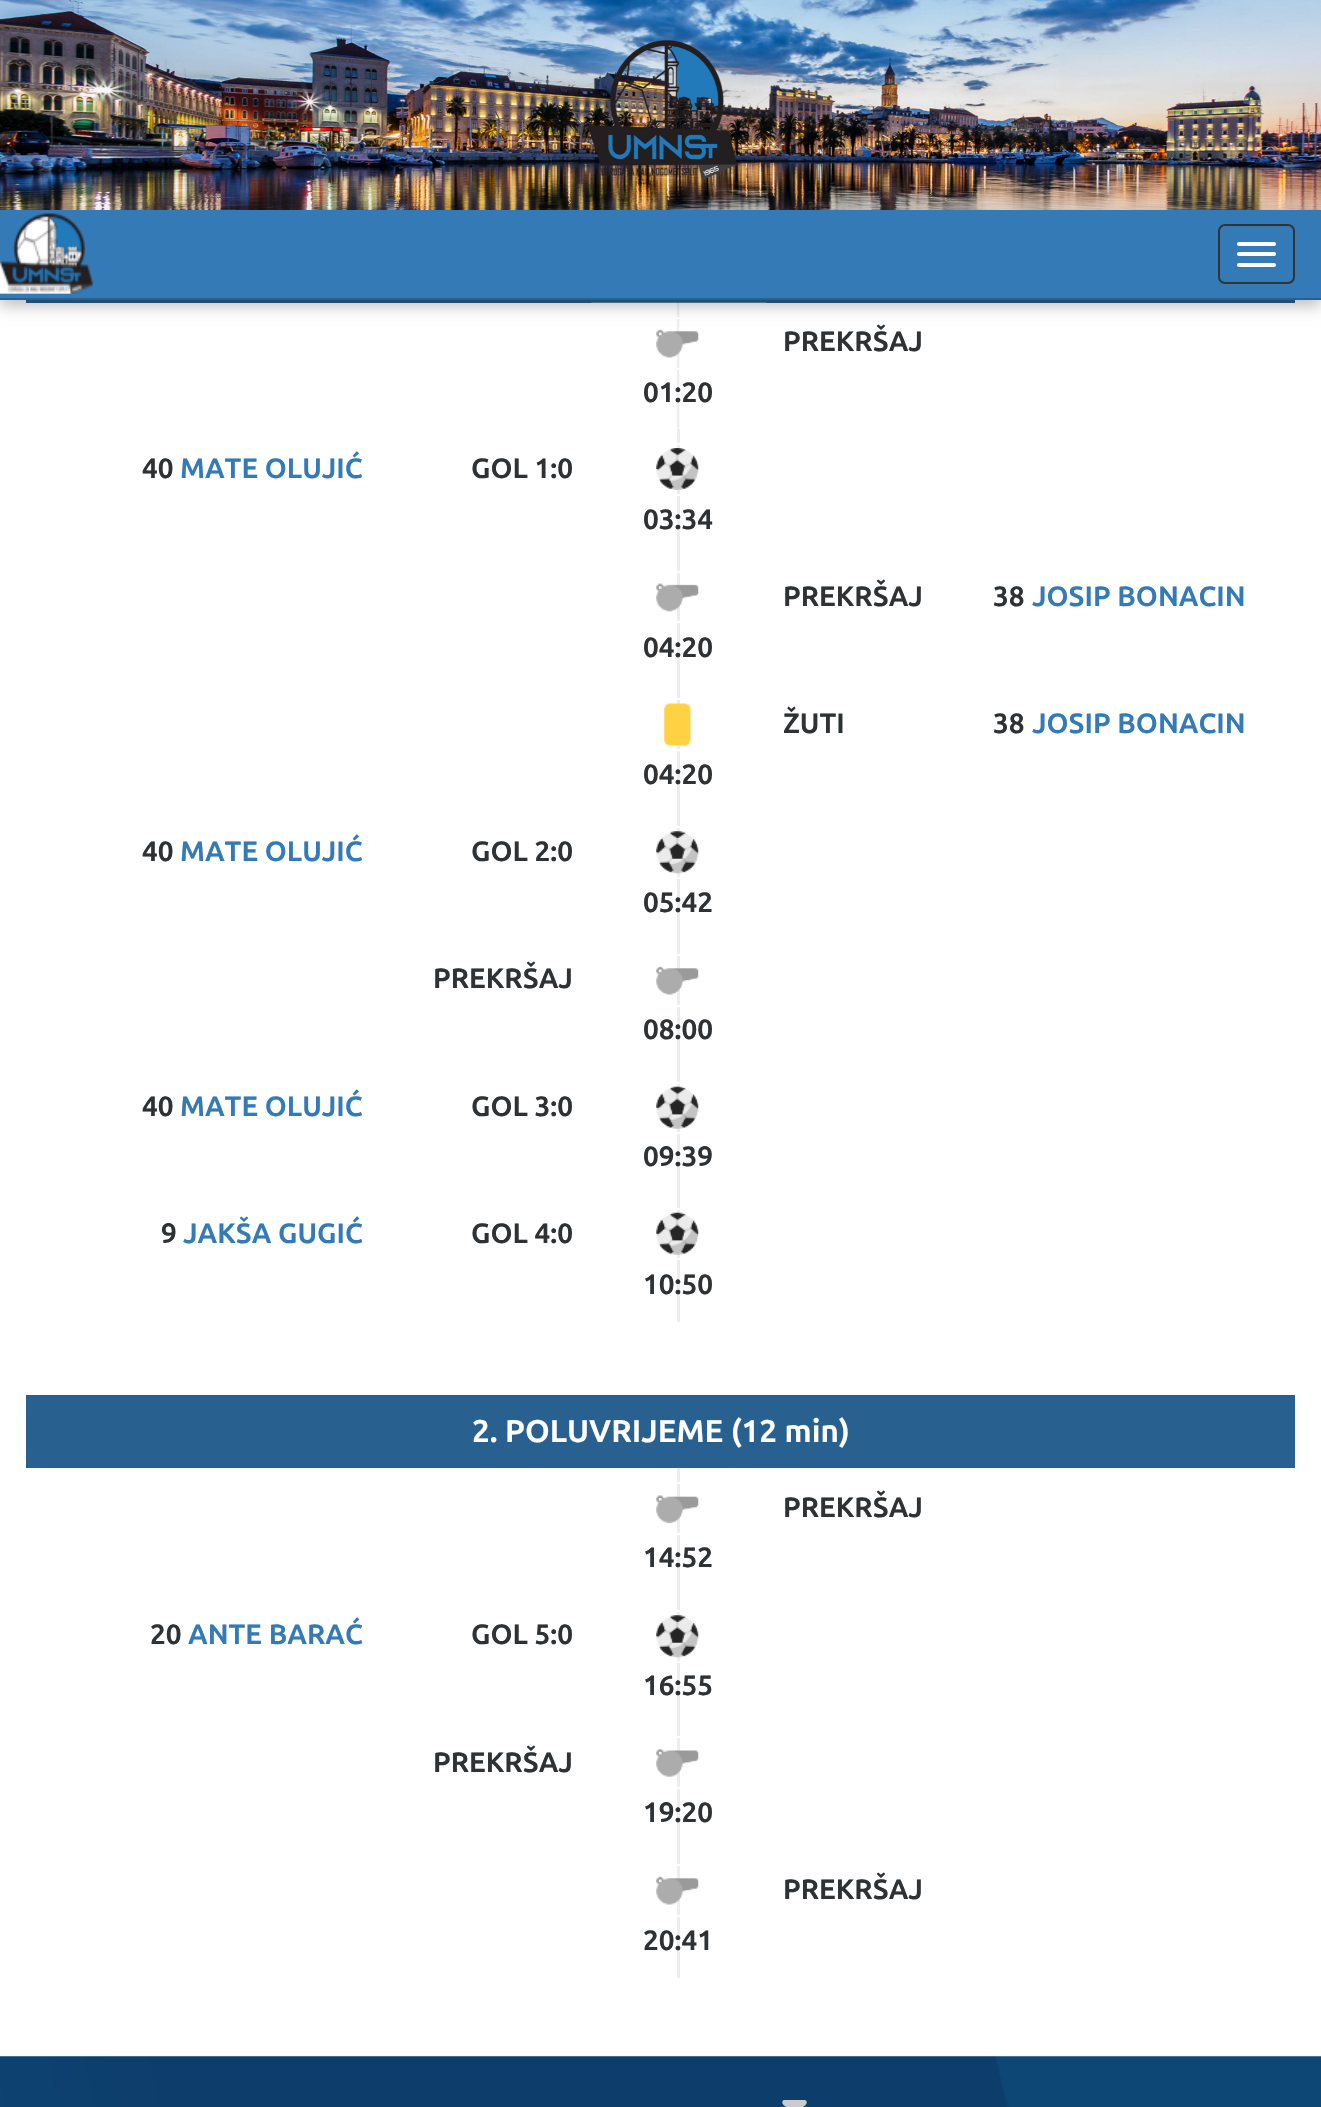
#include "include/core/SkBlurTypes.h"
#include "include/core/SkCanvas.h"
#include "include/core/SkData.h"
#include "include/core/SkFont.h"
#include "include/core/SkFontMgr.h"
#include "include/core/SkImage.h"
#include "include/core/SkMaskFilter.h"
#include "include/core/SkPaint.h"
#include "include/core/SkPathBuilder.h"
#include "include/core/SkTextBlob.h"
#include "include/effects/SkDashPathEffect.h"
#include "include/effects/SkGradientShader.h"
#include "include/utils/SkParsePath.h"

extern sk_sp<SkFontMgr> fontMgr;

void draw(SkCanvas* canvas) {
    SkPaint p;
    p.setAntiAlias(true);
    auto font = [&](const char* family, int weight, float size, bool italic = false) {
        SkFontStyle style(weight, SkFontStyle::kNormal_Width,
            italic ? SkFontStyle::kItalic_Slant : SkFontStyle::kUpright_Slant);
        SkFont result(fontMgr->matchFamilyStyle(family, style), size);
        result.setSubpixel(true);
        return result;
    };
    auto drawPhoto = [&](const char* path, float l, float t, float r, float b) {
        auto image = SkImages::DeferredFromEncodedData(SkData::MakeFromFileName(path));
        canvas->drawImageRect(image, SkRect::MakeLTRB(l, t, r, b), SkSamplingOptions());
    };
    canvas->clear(0xFFFFFFFF);
    drawPhoto("media/1.png", 0, 0, 1321, 210);
    p.setColor(0xFF286090);
    canvas->drawRect(SkRect::MakeLTRB(26, 300, 1295, 303), p);
    drawPhoto("media/3.png", 591, 302, 767, 429);
    p.setColor(0xFFFFFFFF);
    canvas->drawRect(SkRect::MakeLTRB(677, 317, 680, 319), p);
    p.setColor(0x40000000);
    p.setMaskFilter(SkMaskFilter::MakeBlur(kNormal_SkBlurStyle, 7));
    canvas->drawRect(SkRect::MakeLTRB(0, 217, 1321, 306), p);
    p.setMaskFilter(nullptr);
    p.setColor(0xFF337AB7);
    canvas->drawRect(SkRect::MakeLTRB(0, 210, 1321, 298), p);
    p.setColor(0xFF286090);
    canvas->drawRect(SkRect::MakeLTRB(0, 298, 1321, 300), p);
    drawPhoto("media/2.png", 0, 213, 94, 294);
    p.setStyle(SkPaint::kStroke_Style);
    p.setStrokeWidth(2);
    p.setColor(0xFF333333);
    canvas->drawRoundRect(SkRect::MakeLTRB(1219, 225, 1294, 283), 6, 6, p);
    p.setStyle(SkPaint::kFill_Style);
    p.setColor(0xFFFFFFFF);
    canvas->drawRoundRect(SkRect::MakeLTRB(1237, 242, 1276, 246), 2, 2, p);
    canvas->drawRoundRect(SkRect::MakeLTRB(1237, 252, 1276, 256), 2, 2, p);
    canvas->drawRoundRect(SkRect::MakeLTRB(1237, 263, 1276, 267), 2, 2, p);
    auto font1 = font("Ubuntu", 700, 28);
    p.setColor(0xFF2E3235);
    canvas->drawString("PREKRŠAJ", 783, 351, font1, p);
    drawPhoto("media/4.png", 656, 329, 699, 358);
    p.setColor(0xFFFFFFFF);
    canvas->drawRect(SkRect::MakeLTRB(677, 368, 680, 370), p);
    p.setColor(0xFF2E3235);
    canvas->drawString("01:20", 643, 402, font1, p);
    canvas->drawString("40", 142, 478, font1, p);
    p.setColor(0xFF337AB7);
    canvas->drawString("MATE OLUJIĆ", 180, 478, font1, p);
    p.setColor(0xFF2E3235);
    canvas->drawString("GOL 1:0", 471, 478, font1, p);
    p.setColor(0xFFEDEDED);
    canvas->drawRect(SkRect::MakeLTRB(677, 429, 680, 1322), p);
    p.setColor(0xFFFFFFFF);
    canvas->drawRect(SkRect::MakeLTRB(677, 443, 680, 445), p);
    drawPhoto("media/5.png", 656, 448, 699, 490);
    canvas->drawRect(SkRect::MakeLTRB(677, 494, 680, 496), p);
    p.setColor(0xFF2E3235);
    {
        const struct { const char* s; float x, y; } items[] = {
            {"03:34", 643, 529},
            {"PREKRŠAJ", 783, 606},
            {"38", 993, 606},
        };
        for (auto [s, x, y] : items) {
            canvas->drawString(s, x, y, font1, p);
        }
    }
    p.setColor(0xFF337AB7);
    canvas->drawString("JOSIP BONACIN", 1032, 606, font1, p);
    p.setColor(0xFFFFFFFF);
    canvas->drawRect(SkRect::MakeLTRB(677, 571, 680, 573), p);
    drawPhoto("media/6.png", 656, 583, 699, 612);
    canvas->drawRect(SkRect::MakeLTRB(677, 621, 680, 623), p);
    p.setColor(0xFF2E3235);
    {
        const struct { const char* s; float x, y; } items[] = {
            {"04:20", 643, 657},
            {"ŽUTI", 783, 733},
            {"38", 993, 733},
        };
        for (auto [s, x, y] : items) {
            canvas->drawString(s, x, y, font1, p);
        }
    }
    p.setColor(0xFF337AB7);
    canvas->drawString("JOSIP BONACIN", 1032, 733, font1, p);
    p.setColor(0xFFFFFFFF);
    canvas->drawRect(SkRect::MakeLTRB(677, 698, 680, 700), p);
    drawPhoto("media/7.png", 664, 703, 691, 746);
    canvas->drawRect(SkRect::MakeLTRB(677, 749, 680, 751), p);
    p.setColor(0xFF2E3235);
    canvas->drawString("04:20", 643, 784, font1, p);
    canvas->drawString("40", 142, 861, font1, p);
    p.setColor(0xFF337AB7);
    canvas->drawString("MATE OLUJIĆ", 180, 861, font1, p);
    p.setColor(0xFF2E3235);
    canvas->drawString("GOL 2:0", 471, 861, font1, p);
    p.setColor(0xFFFFFFFF);
    canvas->drawRect(SkRect::MakeLTRB(677, 826, 680, 828), p);
    drawPhoto("media/8.png", 656, 831, 699, 874);
    canvas->drawRect(SkRect::MakeLTRB(677, 877, 680, 879), p);
    p.setColor(0xFF2E3235);
    canvas->drawString("05:42", 643, 912, font1, p);
    canvas->drawString("PREKRŠAJ", 433, 988, font1, p);
    p.setColor(0xFFFFFFFF);
    canvas->drawRect(SkRect::MakeLTRB(677, 954, 680, 956), p);
    drawPhoto("media/9.png", 656, 966, 699, 995);
    canvas->drawRect(SkRect::MakeLTRB(677, 1005, 680, 1007), p);
    p.setColor(0xFF2E3235);
    canvas->drawString("08:00", 643, 1039, font1, p);
    canvas->drawString("40", 142, 1116, font1, p);
    p.setColor(0xFF337AB7);
    canvas->drawString("MATE OLUJIĆ", 180, 1116, font1, p);
    p.setColor(0xFF2E3235);
    canvas->drawString("GOL 3:0", 471, 1116, font1, p);
    p.setColor(0xFFFFFFFF);
    canvas->drawRect(SkRect::MakeLTRB(677, 1082, 680, 1084), p);
    drawPhoto("media/10.png", 656, 1086, 699, 1129);
    canvas->drawRect(SkRect::MakeLTRB(677, 1132, 680, 1134), p);
    p.setColor(0xFF2E3235);
    canvas->drawString("09:39", 643, 1166, font1, p);
    canvas->drawString("9", 161, 1243, font1, p);
    p.setColor(0xFF337AB7);
    canvas->drawString("JAKŠA GUGIĆ", 183, 1243, font1, p);
    p.setColor(0xFF2E3235);
    canvas->drawString("GOL 4:0", 471, 1243, font1, p);
    p.setColor(0xFFFFFFFF);
    canvas->drawRect(SkRect::MakeLTRB(677, 1208, 680, 1210), p);
    drawPhoto("media/10.png", 656, 1212, 699, 1255);
    canvas->drawRect(SkRect::MakeLTRB(677, 1258, 680, 1260), p);
    p.setColor(0xFF2E3235);
    canvas->drawString("10:50", 643, 1294, font1, p);
    p.setColor(0xFF286090);
    canvas->drawRect(SkRect::MakeLTRB(26, 1395, 1295, 1468), p);
    auto font2 = font("Ubuntu", 700, 31.5f);
    p.setColor(0xFFFFFFFF);
    canvas->drawString("2. POLUVRIJEME (12 min)", 472, 1442, font2, p);
    p.setColor(0xFF2E3235);
    canvas->drawString("PREKRŠAJ", 783, 1517, font1, p);
    p.setColor(0xFFEDEDED);
    canvas->drawRect(SkRect::MakeLTRB(677, 1468, 680, 1978), p);
    p.setColor(0xFFFFFFFF);
    canvas->drawRect(SkRect::MakeLTRB(677, 1482, 680, 1484), p);
    drawPhoto("media/11.png", 656, 1495, 699, 1524);
    canvas->drawRect(SkRect::MakeLTRB(677, 1533, 680, 1535), p);
    p.setColor(0xFF2E3235);
    canvas->drawString("14:52", 643, 1567, font1, p);
    canvas->drawString("20", 150, 1644, font1, p);
    p.setColor(0xFF337AB7);
    canvas->drawString("ANTE BARAĆ", 188, 1644, font1, p);
    p.setColor(0xFF2E3235);
    canvas->drawString("GOL 5:0", 471, 1644, font1, p);
    p.setColor(0xFFFFFFFF);
    canvas->drawRect(SkRect::MakeLTRB(677, 1610, 680, 1612), p);
    drawPhoto("media/8.png", 656, 1615, 699, 1658);
    canvas->drawRect(SkRect::MakeLTRB(677, 1661, 680, 1663), p);
    p.setColor(0xFF2E3235);
    canvas->drawString("16:55", 643, 1695, font1, p);
    canvas->drawString("PREKRŠAJ", 433, 1772, font1, p);
    p.setColor(0xFFFFFFFF);
    canvas->drawRect(SkRect::MakeLTRB(677, 1736, 680, 1738), p);
    drawPhoto("media/12.png", 656, 1749, 699, 1777);
    canvas->drawRect(SkRect::MakeLTRB(677, 1787, 680, 1789), p);
    p.setColor(0xFF2E3235);
    canvas->drawString("19:20", 643, 1822, font1, p);
    canvas->drawString("PREKRŠAJ", 783, 1899, font1, p);
    p.setColor(0xFFFFFFFF);
    canvas->drawRect(SkRect::MakeLTRB(677, 1864, 680, 1866), p);
    drawPhoto("media/9.png", 656, 1876, 699, 1905);
    canvas->drawRect(SkRect::MakeLTRB(677, 1915, 680, 1917), p);
    p.setColor(0xFF2E3235);
    canvas->drawString("20:41", 643, 1950, font1, p);
    drawPhoto("media/13.png", 0, 2056, 1321, 2107);
    drawPhoto("media/14.png", 782, 2100, 807, 2107);
}
